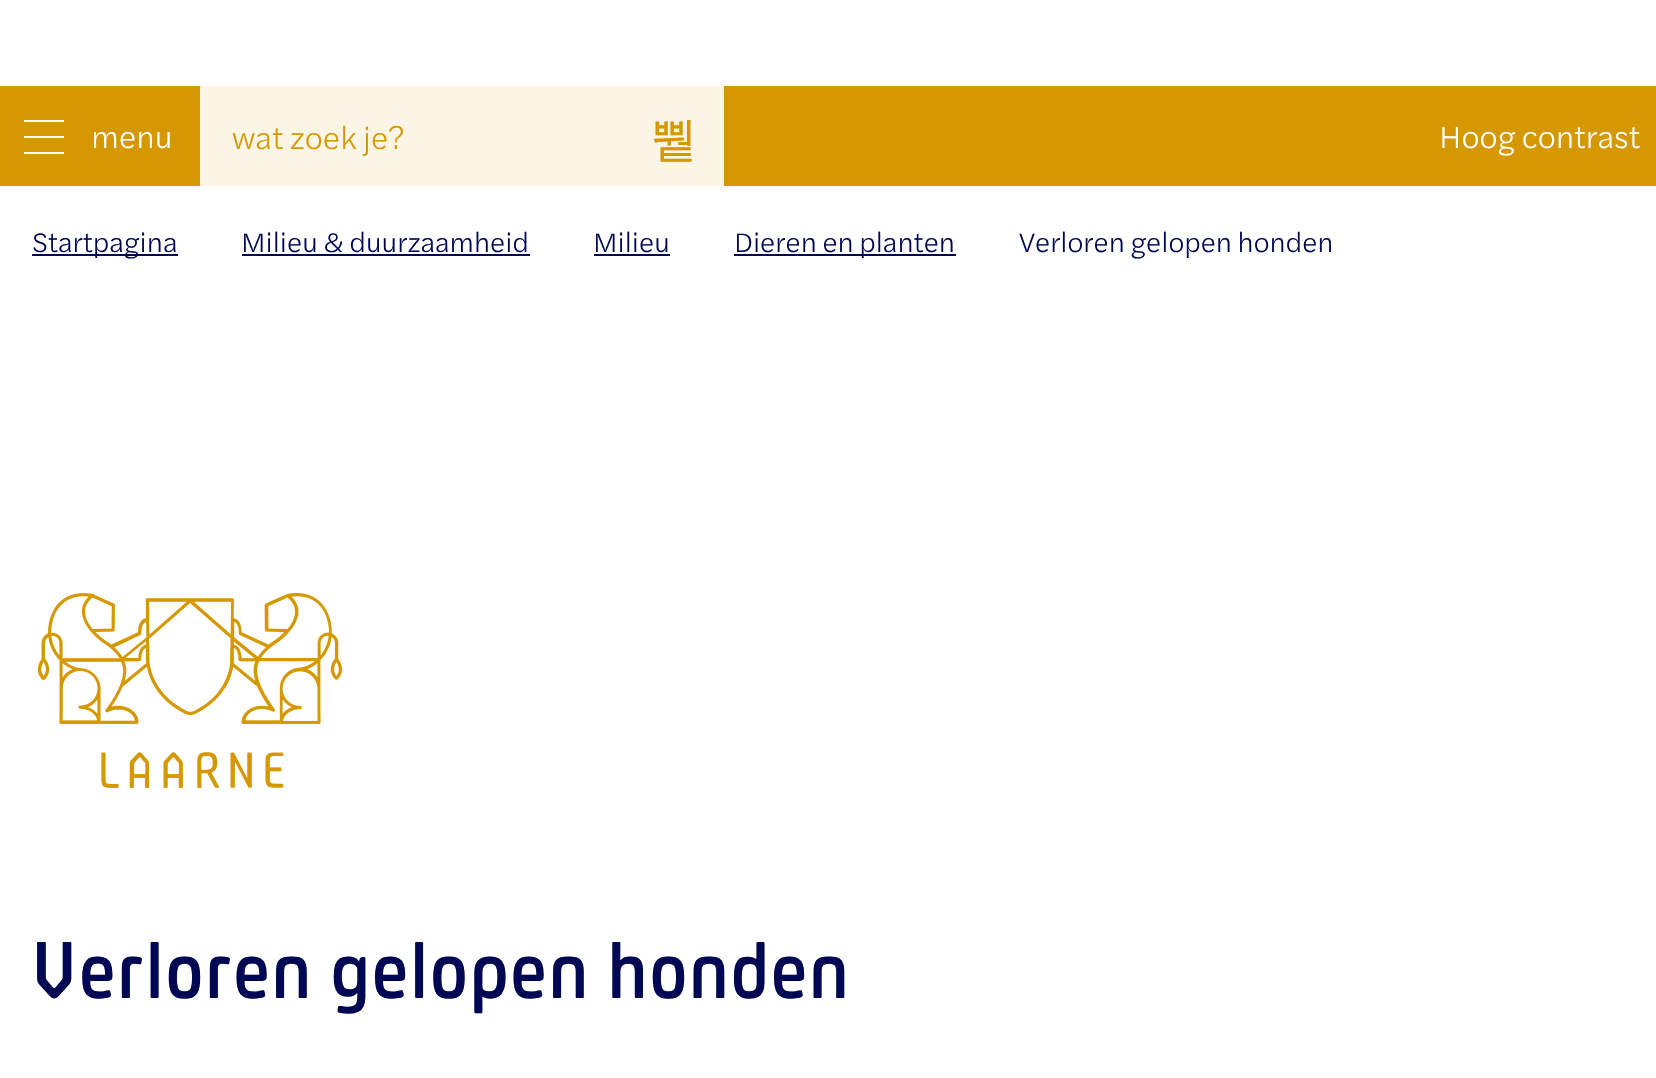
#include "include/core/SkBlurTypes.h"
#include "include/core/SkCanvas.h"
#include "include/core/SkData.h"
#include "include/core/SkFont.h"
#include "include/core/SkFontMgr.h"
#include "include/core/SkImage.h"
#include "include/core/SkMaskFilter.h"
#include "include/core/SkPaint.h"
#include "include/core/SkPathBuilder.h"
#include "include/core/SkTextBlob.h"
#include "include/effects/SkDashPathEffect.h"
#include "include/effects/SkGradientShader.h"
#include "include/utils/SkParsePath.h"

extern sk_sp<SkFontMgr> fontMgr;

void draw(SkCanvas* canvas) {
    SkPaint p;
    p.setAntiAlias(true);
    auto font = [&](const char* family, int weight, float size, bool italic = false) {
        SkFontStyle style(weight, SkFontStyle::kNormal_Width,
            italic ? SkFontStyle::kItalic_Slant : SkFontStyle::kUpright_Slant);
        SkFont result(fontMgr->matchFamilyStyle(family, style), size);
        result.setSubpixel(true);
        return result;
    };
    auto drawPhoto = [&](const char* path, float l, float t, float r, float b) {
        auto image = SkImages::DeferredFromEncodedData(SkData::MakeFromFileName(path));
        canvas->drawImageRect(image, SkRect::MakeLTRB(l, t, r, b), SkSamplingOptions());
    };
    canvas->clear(0xFFFFFFFF);
    {
        const struct { float l, t, r, b; SkColor color; } items[] = {
            {0, 86, 1656, 186, 0xFFD59800},
            {24, 136, 64, 138, 0xFFFFFFFF},
            {24, 120, 64, 122, 0xFFFFFFFF},
            {24, 152, 64, 154, 0xFFFFFFFF},
        };
        for (auto [l, t, r, b, color] : items) {
            p.setColor(color);
            canvas->drawRect(SkRect::MakeLTRB(l, t, r, b), p);
        }
    }
    auto font1 = font("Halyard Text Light", 300, 32);
    canvas->drawString("menu", 91, 148, font1, p);
    p.setColor(0xFFFBF5E6);
    canvas->drawRect(SkRect::MakeLTRB(202, 88, 624, 184), p);
    canvas->drawPath(SkPathBuilder().moveTo(200, 86).lineTo(624, 86).lineTo(624, 88).lineTo(202, 88).close().detach(), p);
    canvas->drawPath(SkPathBuilder().moveTo(624, 186).lineTo(200, 186).lineTo(202, 184).lineTo(624, 184).close().detach(), p);
    p.setColor(0xE6FFFFFF);
    canvas->drawPath(SkPathBuilder().moveTo(200, 186).lineTo(200, 86).lineTo(202, 88).lineTo(202, 184).close().detach(), p);
    p.setColor(0xFFD59800);
    canvas->drawString("wat zoek je?", 232, 149, font1, p);
    p.setColor(0xFFFBF5E6);
    canvas->drawRect(SkRect::MakeLTRB(624, 86, 724, 186), p);
    auto font2 = font("WenQuanYi Zen Hei", 500, 48);
    p.setColor(0xFFD59800);
    canvas->drawString("쀁", 650, 156, font2, p);
    p.setColor(0xFFFFFFFF);
    canvas->drawString("Hoog contrast", 1439, 148, font1, p);
    p.setColor(0xFF000853);
    canvas->drawRect(SkRect::MakeLTRB(32, 254, 178, 256), p);
    auto font3 = font("Halyard Text Light", 300, 28);
    canvas->drawString("Startpagina", 32, 252, font3, p);
    canvas->drawString("Milieu & duurzaamheid", 241, 252, font3, p);
    canvas->drawRect(SkRect::MakeLTRB(242, 254, 530, 256), p);
    canvas->drawString("Milieu", 593, 252, font3, p);
    canvas->drawRect(SkRect::MakeLTRB(594, 254, 670, 256), p);
    canvas->drawRect(SkRect::MakeLTRB(734, 254, 956, 256), p);
    canvas->drawString("Dieren en planten", 734, 252, font3, p);
    canvas->drawString("Verloren gelopen honden", 1019, 252, font3, p);
    drawPhoto("media/1.png", 37, 593, 342, 788);
    auto font4 = font("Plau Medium", 500, 80);
    canvas->drawString("Verloren gelopen honden", 30, 998, font4, p);
}
